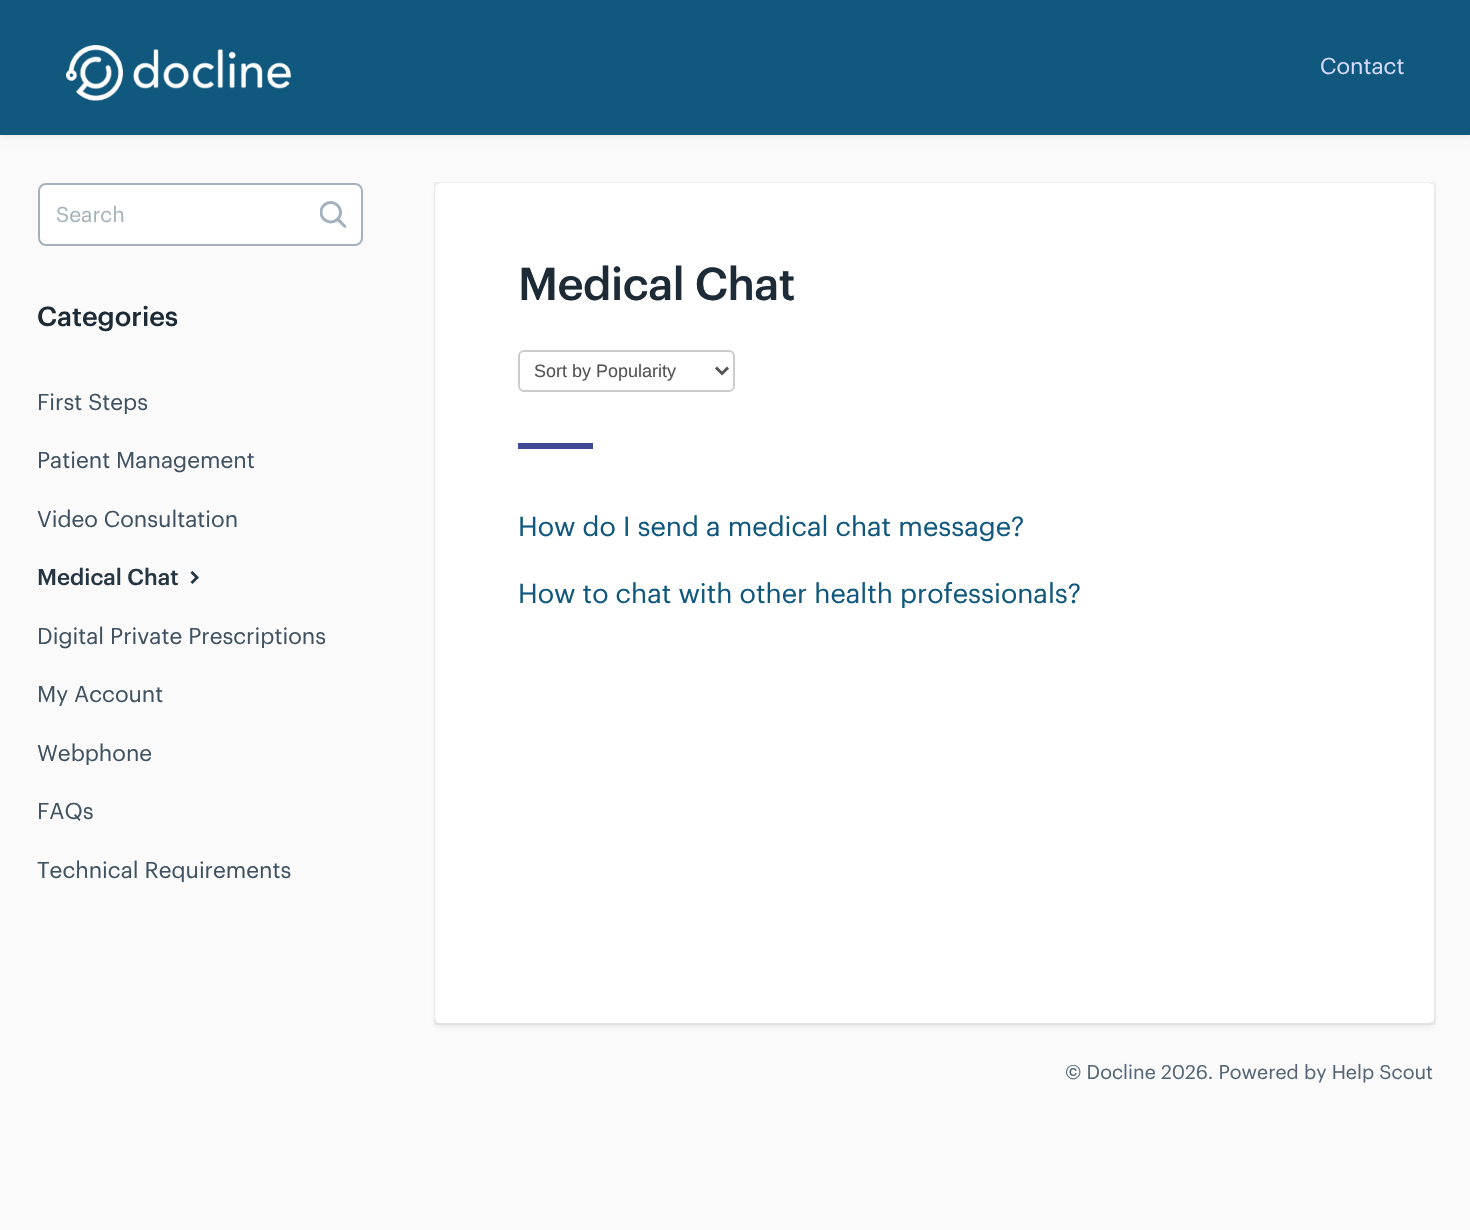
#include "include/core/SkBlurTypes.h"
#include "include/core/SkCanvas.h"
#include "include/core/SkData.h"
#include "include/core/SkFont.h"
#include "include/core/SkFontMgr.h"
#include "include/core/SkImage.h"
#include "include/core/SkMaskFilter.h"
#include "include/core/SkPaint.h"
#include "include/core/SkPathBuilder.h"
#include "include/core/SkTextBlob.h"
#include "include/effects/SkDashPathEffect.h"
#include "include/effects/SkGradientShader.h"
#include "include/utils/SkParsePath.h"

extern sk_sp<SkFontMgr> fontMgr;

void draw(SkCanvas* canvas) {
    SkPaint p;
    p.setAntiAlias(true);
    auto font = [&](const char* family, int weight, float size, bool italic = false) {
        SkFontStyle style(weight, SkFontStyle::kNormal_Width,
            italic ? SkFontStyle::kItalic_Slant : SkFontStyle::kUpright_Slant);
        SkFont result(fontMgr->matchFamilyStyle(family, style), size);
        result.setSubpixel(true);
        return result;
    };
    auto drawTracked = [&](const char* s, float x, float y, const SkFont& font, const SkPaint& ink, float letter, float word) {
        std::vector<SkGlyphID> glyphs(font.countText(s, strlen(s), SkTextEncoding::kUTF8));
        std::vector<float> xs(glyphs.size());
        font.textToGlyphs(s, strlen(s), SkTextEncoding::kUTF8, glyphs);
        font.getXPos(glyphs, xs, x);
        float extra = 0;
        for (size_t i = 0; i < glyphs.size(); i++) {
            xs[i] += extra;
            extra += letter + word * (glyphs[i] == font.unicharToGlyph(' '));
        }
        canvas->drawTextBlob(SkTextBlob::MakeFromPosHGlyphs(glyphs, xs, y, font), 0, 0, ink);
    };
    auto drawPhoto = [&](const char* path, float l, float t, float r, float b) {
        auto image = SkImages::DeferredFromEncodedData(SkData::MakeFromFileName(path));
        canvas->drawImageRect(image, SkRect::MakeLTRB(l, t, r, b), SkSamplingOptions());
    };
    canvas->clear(0xFFFAFAFA);
    p.setColor(0x12000000);
    p.setMaskFilter(SkMaskFilter::MakeBlur(kNormal_SkBlurStyle, 3));
    canvas->drawRect(SkRect::MakeLTRB(0, 2, 1470, 137), p);
    p.setMaskFilter(nullptr);
    p.setColor(0xFF10587E);
    canvas->drawRect(SkRect::MakeLTRB(0, 0, 1470, 135), p);
    drawPhoto("media/1.png", 66, 45, 291, 101);
    auto font1 = font("Graphik", 400, 22.5f);
    p.setColor(0xFFD9DCFD);
    canvas->drawString("Contact", 1320, 74, font1, p);
    p.setColor(0xFFFFFFFF);
    canvas->drawRoundRect(SkRect::MakeLTRB(39, 184, 362, 245), 7, 7, p);
    p.setStyle(SkPaint::kStroke_Style);
    p.setStrokeWidth(2);
    p.setColor(0xFFA5B2BD);
    canvas->drawRoundRect(SkRect::MakeLTRB(39, 184, 362, 245), 7, 7, p);
    auto font2 = font("Graphik", 400, 21);
    p.setStyle(SkPaint::kFill_Style);
    canvas->drawString("Search", 56, 222, font2, p);
    drawPhoto("media/2.png", 320, 201, 347, 228);
    auto font3 = font("Graphik", 500, 27);
    p.setColor(0xFF1D2B36);
    canvas->drawString("Categories", 37, 326, font3, p);
    p.setColor(0xFF405261);
    {
        const struct { const char* s; float x, y; } items[] = {
            {"First Steps", 37, 410},
            {"Patient Management", 37, 468},
            {"Video Consultation", 37, 527},
        };
        for (auto [s, x, y] : items) {
            canvas->drawString(s, x, y, font1, p);
        }
    }
    auto font4 = font("Graphik", 500, 22.5f);
    p.setColor(0xFF253642);
    canvas->drawString("Medical Chat", 37, 585, font4, p);
    drawPhoto("media/3.png", 190, 571, 199, 584);
    p.setColor(0xFF405261);
    {
        const struct { const char* s; float x, y; } items[] = {
            {"Digital Private Prescriptions", 37, 644},
            {"My Account", 37, 702},
            {"Webphone", 37, 761},
            {"FAQs", 37, 819},
            {"Technical Requirements", 37, 878},
        };
        for (auto [s, x, y] : items) {
            canvas->drawString(s, x, y, font1, p);
        }
    }
    p.setColor(0x0D000000);
    p.setMaskFilter(SkMaskFilter::MakeBlur(kNormal_SkBlurStyle, 2));
    canvas->drawRoundRect(SkRect::MakeLTRB(435, 188, 1434, 1028), 6, 6, p);
    p.setMaskFilter(nullptr);
    p.setStyle(SkPaint::kStroke_Style);
    canvas->drawRect(SkRect::MakeLTRB(435, 183, 1435, 1024), p);
    p.setStyle(SkPaint::kFill_Style);
    p.setColor(0xFFFFFFFF);
    canvas->drawRoundRect(SkRect::MakeLTRB(435, 183, 1434, 1023), 6, 6, p);
    auto font5 = font("Graphik", 500, 45);
    p.setColor(0xFF1D2B36);
    drawTracked("Medical Chat", 518, 300, font5, p, -0.5f, 0);
    p.setStyle(SkPaint::kStroke_Style);
    p.setColor(0xFFCCCCCC);
    canvas->drawRoundRect(SkRect::MakeLTRB(519, 351, 734, 391), 5, 5, p);
    p.setStrokeWidth(3);
    p.setColor(0xFF555555);
    canvas->drawPath(SkPathBuilder().moveTo(716, 367.5f).lineTo(722, 373.5f).lineTo(728, 367.5f).detach(), p);
    auto font6 = font("Liberation Sans", 400, 18);
    p.setStyle(SkPaint::kFill_Style);
    canvas->drawString("Sort by Popularity", 534, 377, font6, p);
    p.setColor(0xFF404996);
    canvas->drawRect(SkRect::MakeLTRB(518, 443, 593, 449), p);
    auto font7 = font("Graphik", 400, 27);
    p.setColor(0xFF10587E);
    canvas->drawString("How do I send a medical chat message?", 518, 536, font7, p);
    canvas->drawString("How to chat with other health professionals?", 518, 603, font7, p);
    auto font8 = font("Graphik", 400, 19.5f);
    p.setColor(0xFF556575);
    canvas->drawString("© Docline 2026. Powered by Help Scout", 1065, 1079, font8, p);
}
